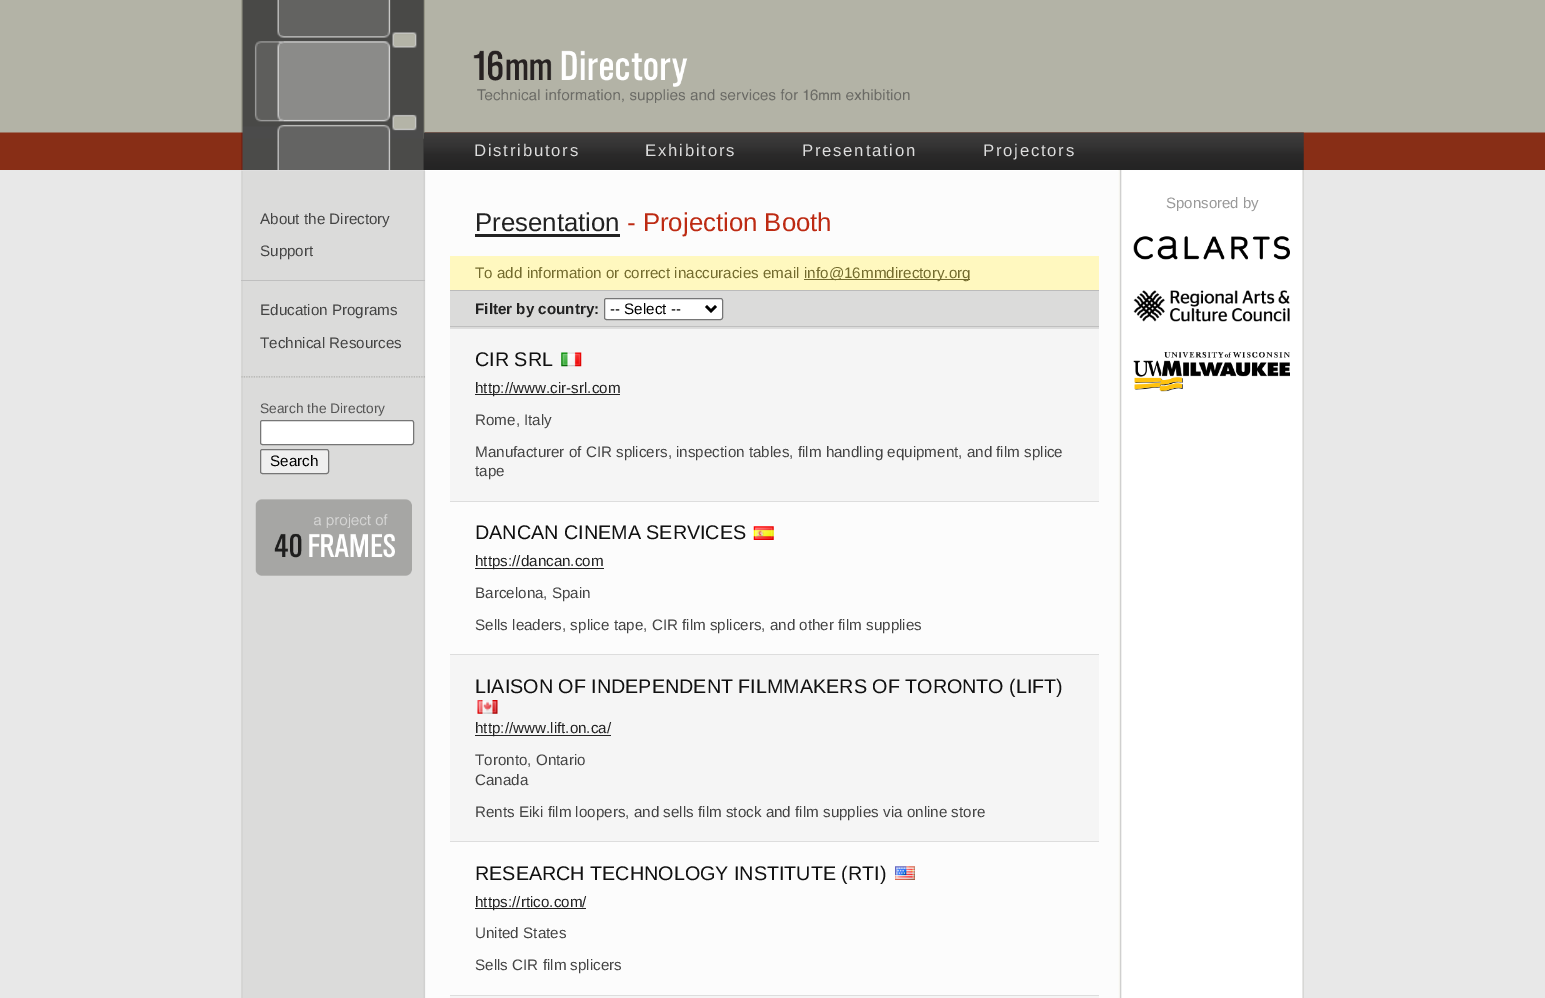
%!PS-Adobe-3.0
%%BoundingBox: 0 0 1545 998
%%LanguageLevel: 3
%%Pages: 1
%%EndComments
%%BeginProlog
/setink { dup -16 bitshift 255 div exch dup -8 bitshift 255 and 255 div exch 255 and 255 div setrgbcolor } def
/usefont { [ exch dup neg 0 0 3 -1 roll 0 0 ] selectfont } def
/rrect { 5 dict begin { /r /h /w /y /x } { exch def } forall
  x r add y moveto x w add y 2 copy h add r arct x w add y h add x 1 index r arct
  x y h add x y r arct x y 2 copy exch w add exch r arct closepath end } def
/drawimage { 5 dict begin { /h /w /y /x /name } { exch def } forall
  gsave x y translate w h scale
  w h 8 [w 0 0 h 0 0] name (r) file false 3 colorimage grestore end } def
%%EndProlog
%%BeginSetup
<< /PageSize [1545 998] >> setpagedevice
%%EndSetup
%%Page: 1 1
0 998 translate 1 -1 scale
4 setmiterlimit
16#E8E8E8 setink
0 0 1545 998 rectfill
(img1.raw) 0 0 1545 170 drawimage
(img2.raw) 241 0 184 170 drawimage
(img3.raw) 473 50 437 53 drawimage
(img4.raw) 423 132 881 38 drawimage
/LiberationSans-Regular 16.75 usefont
16#DDDDDD setink
474 156 moveto 1.75 0 (Distributors) ashow
645 156 moveto 1.75 0 (Exhibitors) ashow
802 156 moveto 1.75 0 (Presentation) ashow
983 156 moveto 1.75 0 (Projectors) ashow
(img5.raw) 241 170 1063 828 drawimage
/LiberationSans-Regular 15 usefont
16#999999 setink
1166 208 moveto (Sponsored by) show
(img6.raw) 1133 236 157 24 drawimage
(img7.raw) 1133 290 157 32 drawimage
(img8.raw) 1133 352 157 40 drawimage
16#DFDFDF setink
241 170 184 1 rectfill
(img9.raw) 241 376 184 2 drawimage
/LiberationSans-Regular 15.2 usefont
16#444444 setink
260 224 moveto (About the Directory) show
260 256 moveto (Support) show
16#BFBFBF setink
241 280 184 1 rectfill
16#444444 setink
260 315 moveto (Education Programs) show
260 348 moveto (Technical Resources) show
/LiberationSans-Regular 13.75 usefont
16#555555 setink
260 413 moveto (Search the Directory) show
16#FFFFFF setink
260.5 420.5 153 24 2 rrect gsave fill grestore
16#767676 setink
stroke
16#EFEFEF setink
260.5 449.5 68 24 2 rrect gsave fill grestore
16#767676 setink
stroke
/LiberationSans-Regular 15.2 usefont
16#000000 setink
270 466 moveto (Search) show
(img10.raw) 255 499 157 77 drawimage
16#FFFFFF setink
425 170 693 1 rectfill
/LiberationSans-Regular 25.75 usefont
16#222222 setink
475 231 moveto (Presentation) show
475 234 145 3 rectfill
16#BD2A12 setink
627 231 moveto (- Projection Booth) show
16#FFF8BF setink
450 256 649 34 rectfill
/LiberationSans-Regular 15.2 usefont
16#736B2E setink
475 278 moveto (To add information or correct inaccuracies email) show
804 279 166 1 rectfill
804 278 moveto (info@16mmdirectory.org) show
[
    [450 291 649 37 16#DBDBDA]
    [450 290 649 1 16#BBBBBB]
    [450 326 649 1 16#BFBFBF]
] { aload pop setink rectfill } forall
/LiberationSans-Bold 15.2 usefont
16#222222 setink
475 314 moveto (Filter by country:) show
16#FFFFFF setink
604.5 298.5 118 21 2 rrect gsave fill grestore
16#767676 setink
stroke
16#000000 setink
2.5 setlinewidth
706 306 moveto 711 311 lineto 716 306 lineto stroke
/LiberationSans-Regular 15.2 usefont
610 314 moveto (-- Select --) show
16#F5F5F5 setink
450 329 649 172 rectfill
16#DDDDDD setink
450 328 649 1 rectfill
/LiberationSans-Regular 19.75 usefont
16#111111 setink
475 366 moveto (CIR SRL) show
(img11.raw) 561 352 21 15 drawimage
16#222222 setink
475 394 145 1 rectfill
/LiberationSans-Regular 15.2 usefont
475 393 moveto (http://www.cir-srl.com) show
16#444444 setink
[
    [(Rome, Italy) 475 425]
    [(Manufacturer of CIR splicers, inspection tables, film handling equipment, and film splice) 475 457]
    [(tape) 475 476]
] { aload pop moveto show } forall
16#DDDDDD setink
450 501 649 1 rectfill
/LiberationSans-Regular 19.75 usefont
16#111111 setink
475 539 moveto (DANCAN CINEMA SERVICES) show
(img12.raw) 753 526 21 14 drawimage
16#222222 setink
475 568 129 1 rectfill
/LiberationSans-Regular 15.2 usefont
475 566 moveto (https://dancan.com) show
16#444444 setink
475 598 moveto (Barcelona, Spain) show
475 630 moveto (Sells leaders, splice tape, CIR film splicers, and other film supplies) show
16#F5F5F5 setink
450 655 649 186 rectfill
16#DDDDDD setink
450 654 649 1 rectfill
/LiberationSans-Regular 19.75 usefont
16#111111 setink
475 693 moveto (LIAISON OF INDEPENDENT FILMMAKERS OF TORONTO \(LIFT\)) show
(img13.raw) 477 700 21 14 drawimage
16#222222 setink
475 735 136 1 rectfill
/LiberationSans-Regular 15.2 usefont
475 733 moveto (http://www.lift.on.ca/) show
16#444444 setink
[
    [(Toronto, Ontario) 475 765]
    [(Canada) 475 785]
    [(Rents Eiki film loopers, and sells film stock and film supplies via online store) 475 817]
] { aload pop moveto show } forall
16#DDDDDD setink
450 841 649 1 rectfill
/LiberationSans-Regular 19.75 usefont
16#111111 setink
475 880 moveto (RESEARCH TECHNOLOGY INSTITUTE \(RTI\)) show
(img14.raw) 895 866 20 14 drawimage
16#222222 setink
475 908 111 1 rectfill
/LiberationSans-Regular 15.2 usefont
475 907 moveto (https://rtico.com/) show
16#444444 setink
475 938 moveto (United States) show
475 970 moveto (Sells CIR film splicers) show
16#F5F5F5 setink
450 996 649 2 rectfill
16#DDDDDD setink
450 995 649 1 rectfill
showpage
%%EOF
